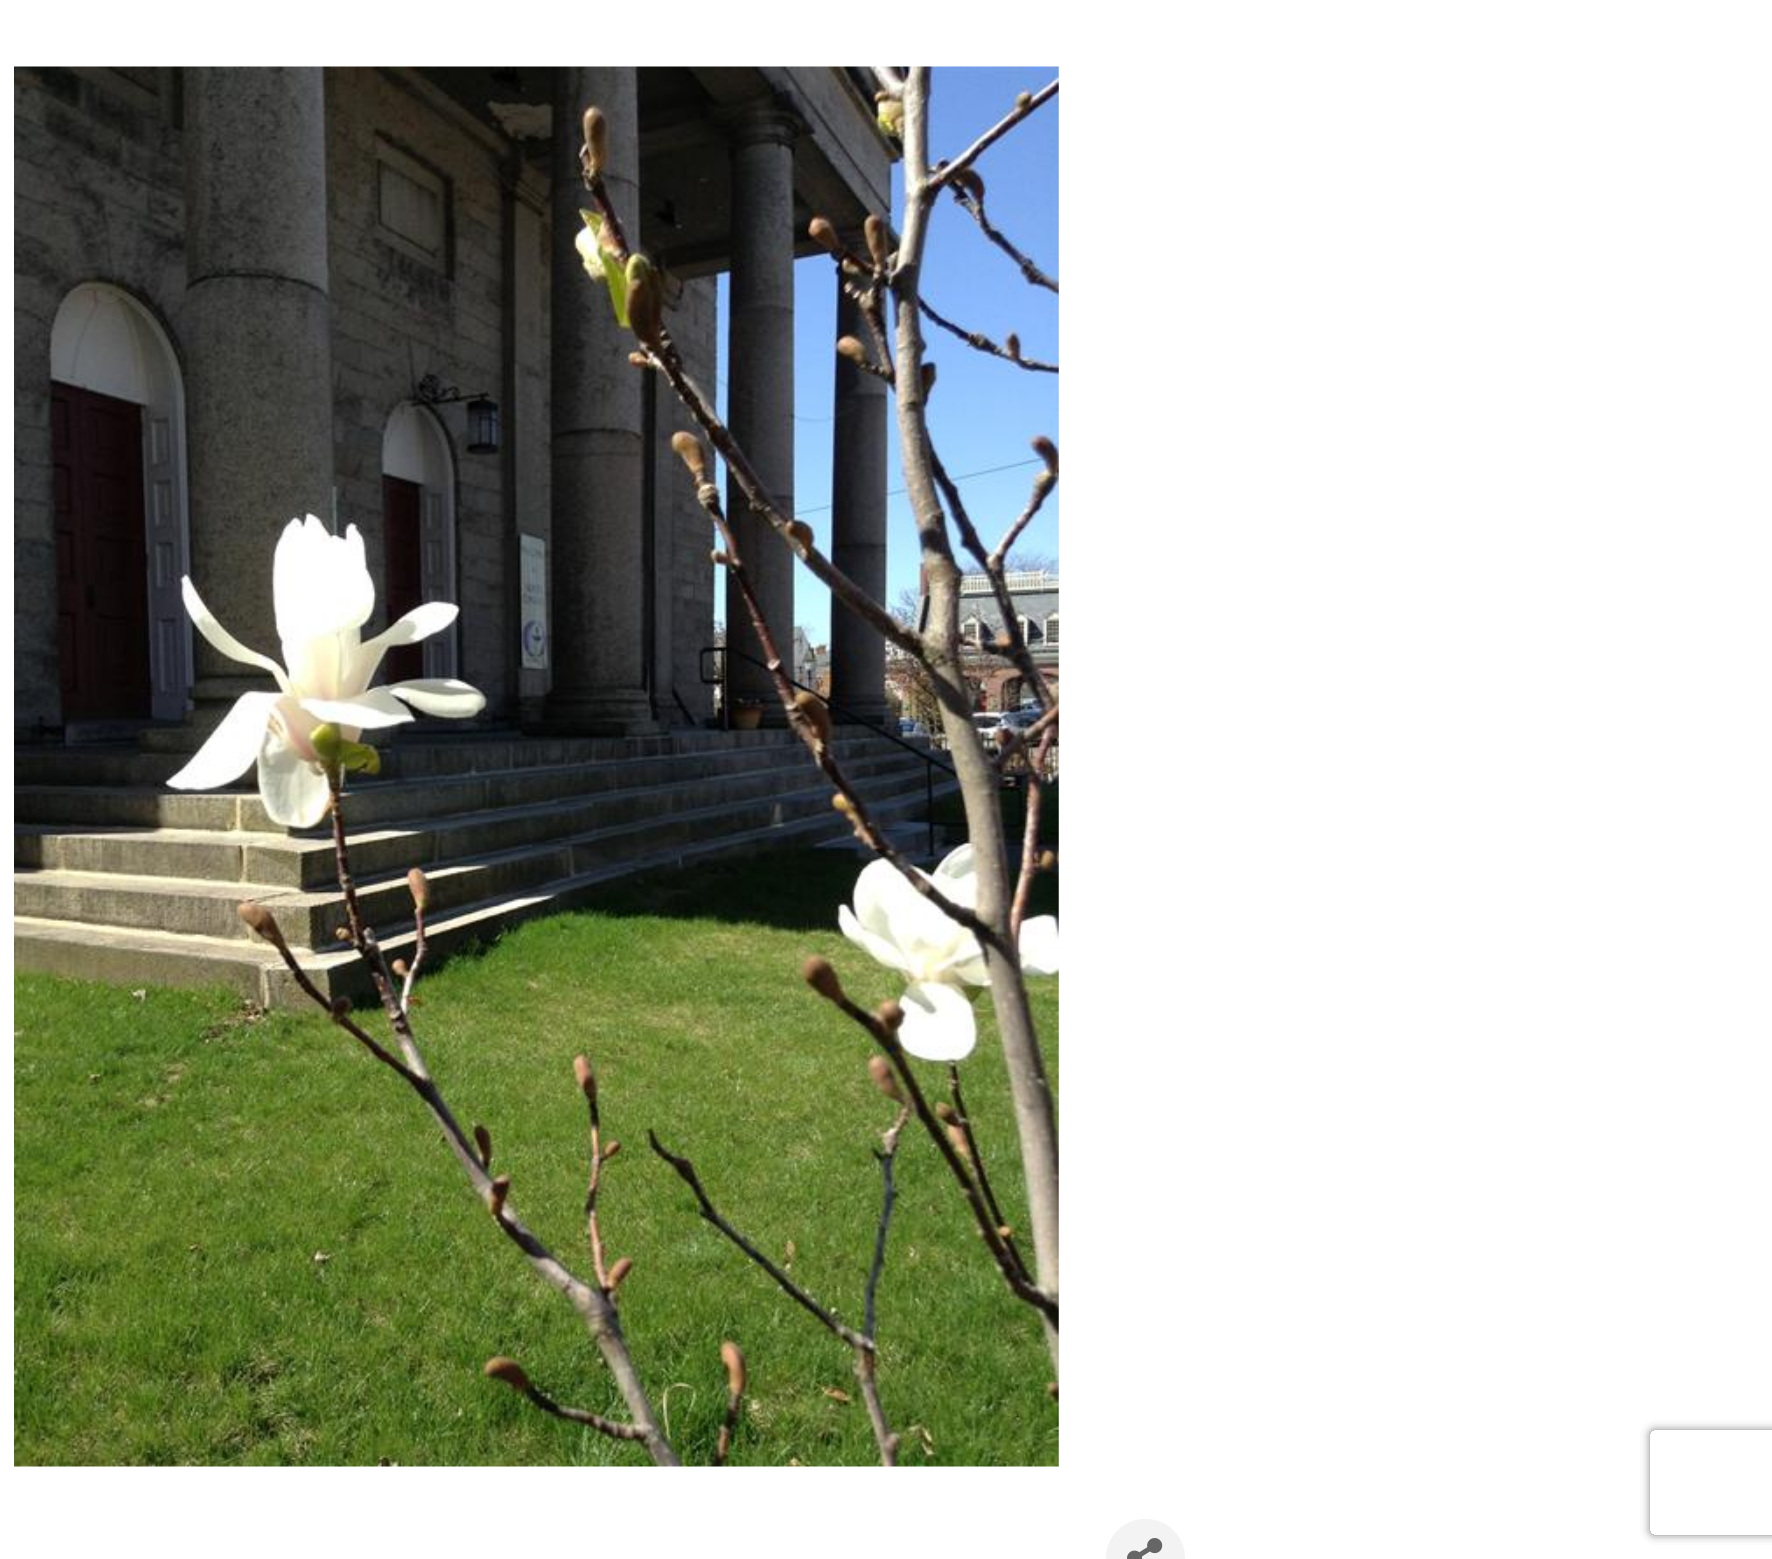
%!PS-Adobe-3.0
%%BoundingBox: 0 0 1772 1559
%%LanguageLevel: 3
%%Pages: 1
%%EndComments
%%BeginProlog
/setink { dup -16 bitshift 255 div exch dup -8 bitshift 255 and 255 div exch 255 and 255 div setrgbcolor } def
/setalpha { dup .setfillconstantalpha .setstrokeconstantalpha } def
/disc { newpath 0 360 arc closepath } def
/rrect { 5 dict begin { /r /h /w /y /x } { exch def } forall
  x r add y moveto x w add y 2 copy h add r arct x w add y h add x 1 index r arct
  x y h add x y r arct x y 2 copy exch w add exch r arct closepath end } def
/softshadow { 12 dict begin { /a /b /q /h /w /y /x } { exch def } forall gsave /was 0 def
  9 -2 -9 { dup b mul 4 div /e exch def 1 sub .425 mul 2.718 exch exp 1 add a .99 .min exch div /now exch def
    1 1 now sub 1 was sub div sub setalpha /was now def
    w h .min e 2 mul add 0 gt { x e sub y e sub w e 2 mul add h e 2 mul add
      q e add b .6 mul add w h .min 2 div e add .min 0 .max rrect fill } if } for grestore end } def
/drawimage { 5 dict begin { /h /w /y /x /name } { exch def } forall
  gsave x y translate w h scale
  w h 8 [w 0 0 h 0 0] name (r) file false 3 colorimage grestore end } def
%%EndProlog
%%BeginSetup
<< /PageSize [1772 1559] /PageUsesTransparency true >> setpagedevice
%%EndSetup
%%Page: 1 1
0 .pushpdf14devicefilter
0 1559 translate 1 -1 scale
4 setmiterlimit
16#FFFFFF setink
0 0 1772 1559 rectfill
(img1.raw) 14 66 1045 1401 drawimage
16#F3F3F3 setink
1145.5 1558.5 39.5 disc fill
(img2.raw) 1127 1538 36 21 drawimage
gsave
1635 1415 moveto 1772 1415 lineto 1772 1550 lineto 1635 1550 lineto closepath 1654 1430 moveto 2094 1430 lineto 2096 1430 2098 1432 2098 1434 curveto 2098 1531 lineto 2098 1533 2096 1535 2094 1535 curveto 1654 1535 lineto 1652 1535 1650 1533 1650 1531 curveto 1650 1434 lineto 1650 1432 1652 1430 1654 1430 curveto closepath eoclip newpath
16#808080 setink
1650 1430 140 105 4 4.5 1 softshadow
grestore
.poppdf14devicefilter showpage
%%EOF
